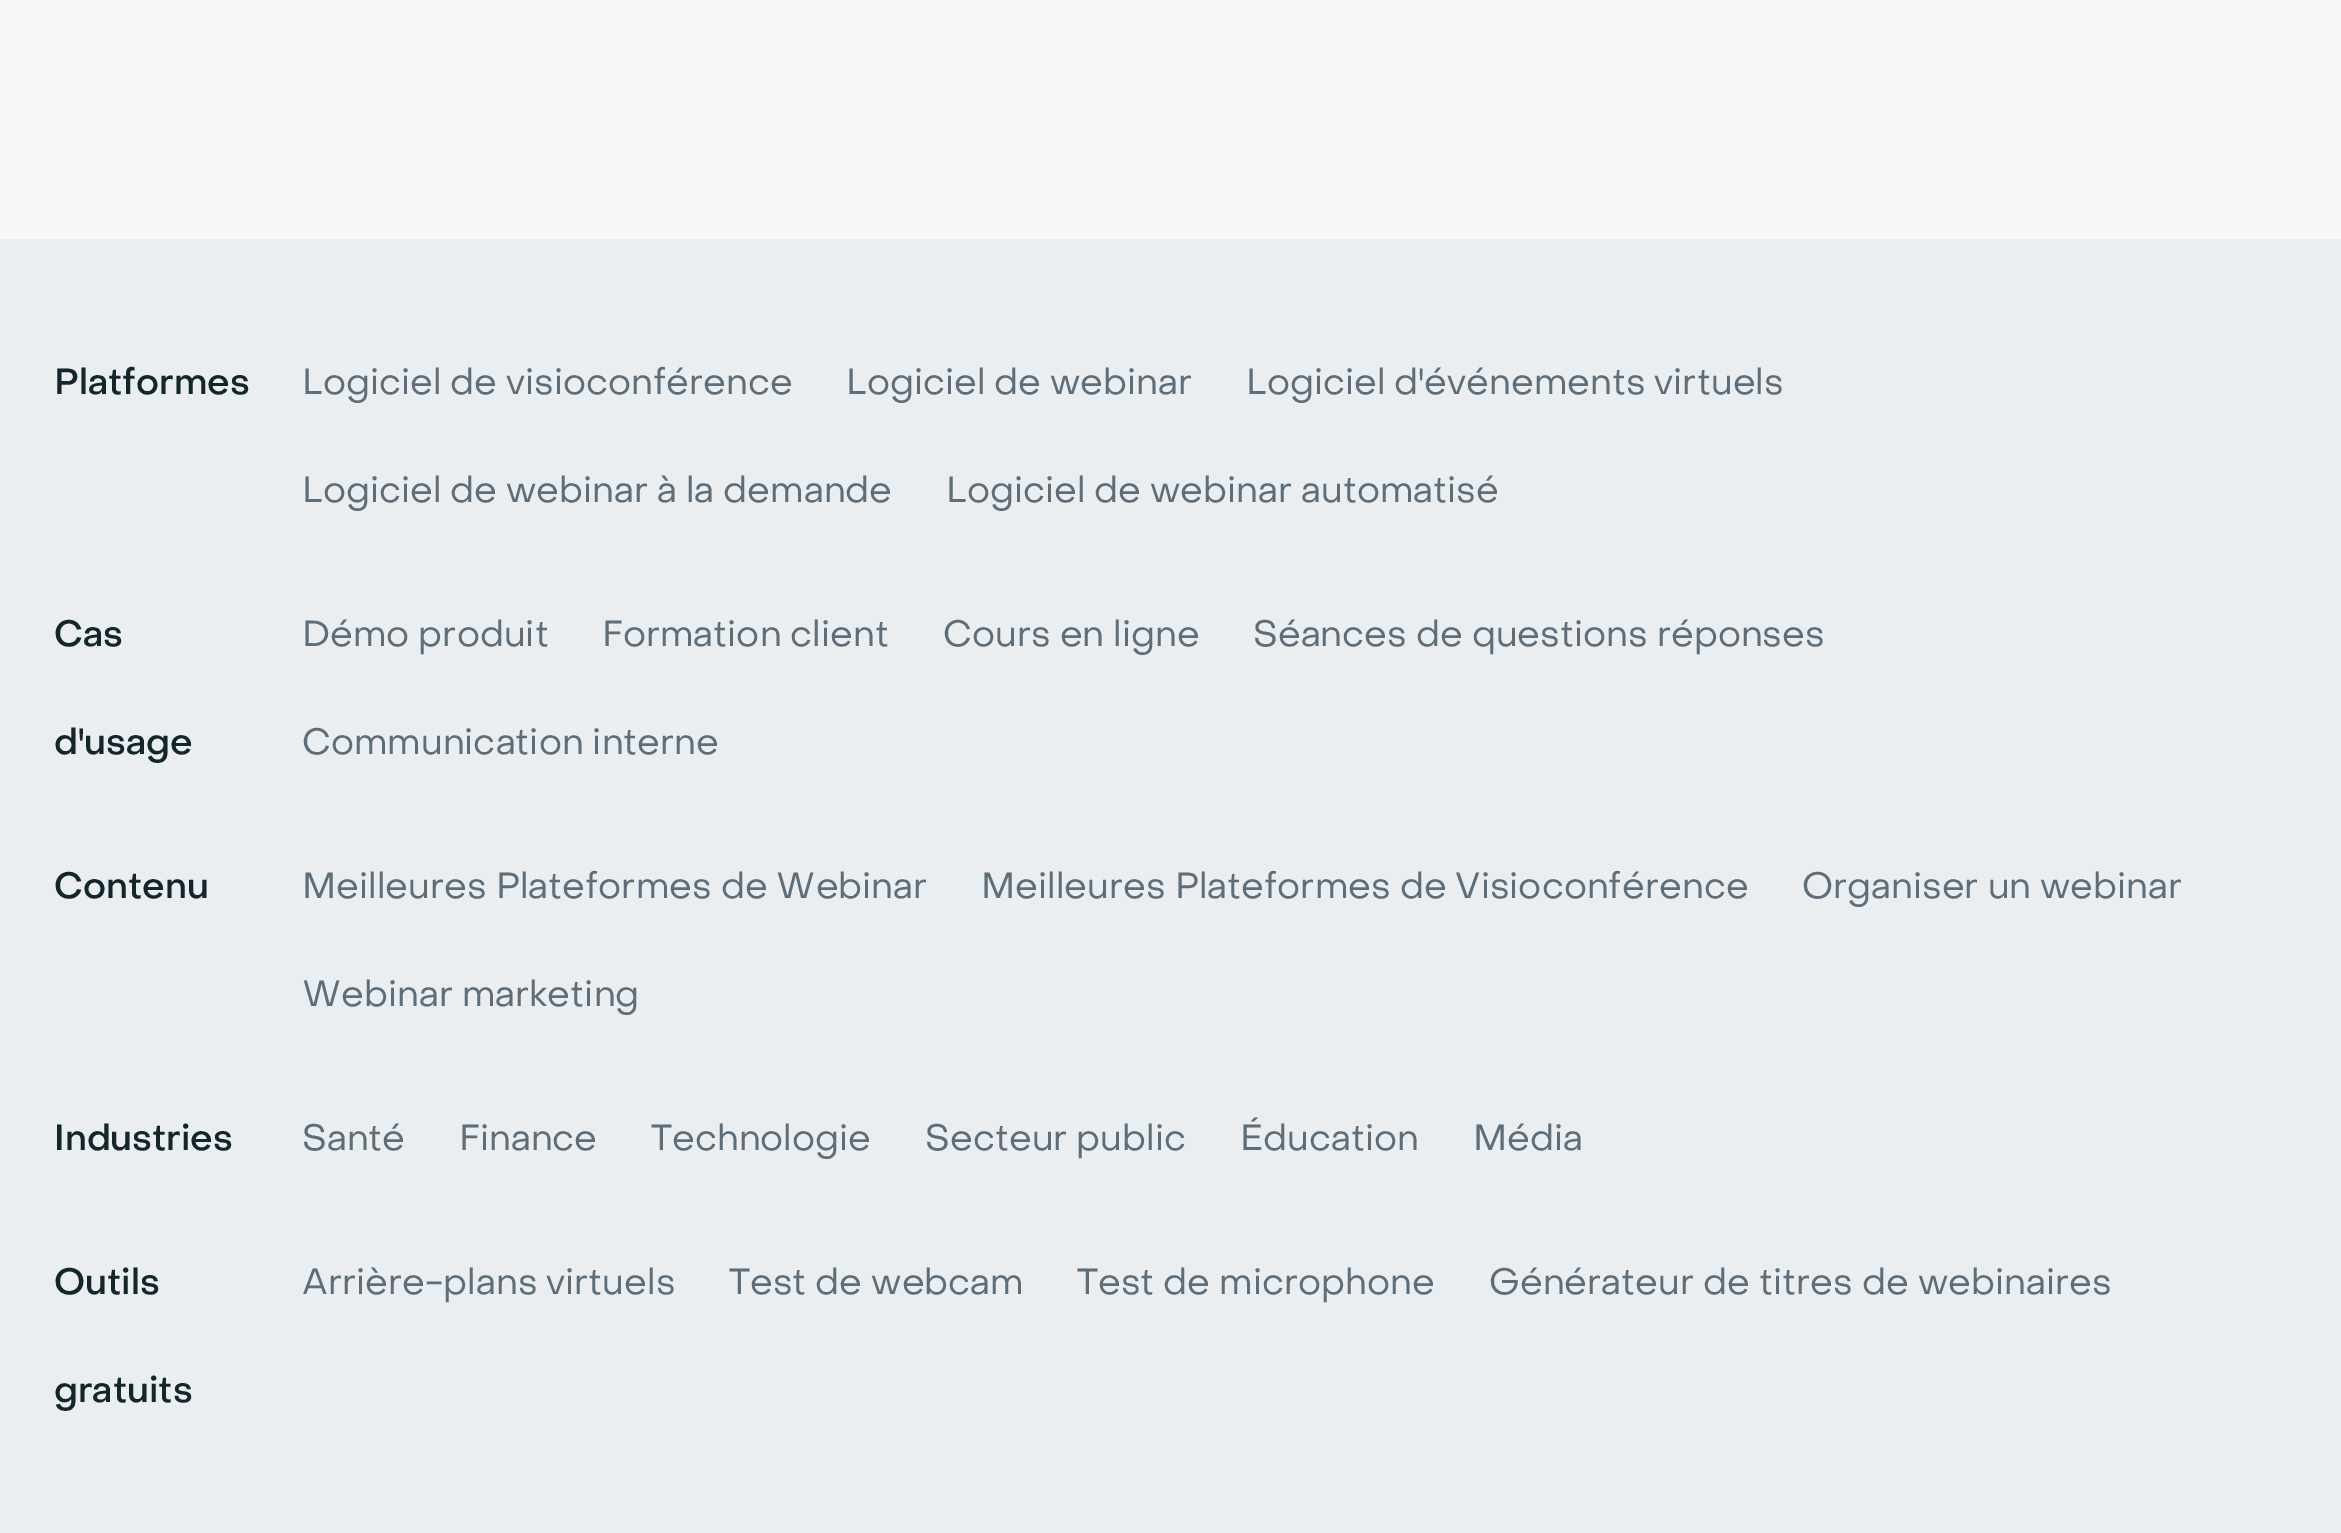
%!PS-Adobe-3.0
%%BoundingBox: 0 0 2341 1533
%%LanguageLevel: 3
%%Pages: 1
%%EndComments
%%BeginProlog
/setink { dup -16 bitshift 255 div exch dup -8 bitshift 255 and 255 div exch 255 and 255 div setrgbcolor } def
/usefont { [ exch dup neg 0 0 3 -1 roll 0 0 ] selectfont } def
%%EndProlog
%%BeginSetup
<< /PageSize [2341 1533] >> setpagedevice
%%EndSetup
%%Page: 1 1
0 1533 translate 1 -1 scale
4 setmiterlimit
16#F6F8F9 setink
0 0 2341 1533 rectfill
16#EAEEF1 setink
0 239 2341 1294 rectfill
/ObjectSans-Medium 36 usefont
16#12262B setink
54 394 moveto (Platformes) show
/ObjectSans-Regular 36 usefont
16#5D6D79 setink
[
    [(Logiciel de visioconférence) 302 394]
    [(Logiciel de webinar) 846 394]
    [(Logiciel d'événements virtuels) 1246 394]
    [(Logiciel de webinar à la demande) 302 502]
    [(Logiciel de webinar automatisé) 946 502]
] { aload pop moveto show } forall
/ObjectSans-Medium 36 usefont
16#12262B setink
54 646 moveto (Cas) show
54 754 moveto (d'usage) show
/ObjectSans-Regular 36 usefont
16#5D6D79 setink
[
    [(Démo produit) 302 646]
    [(Formation client) 602 646]
    [(Cours en ligne) 943 646]
    [(Séances de questions réponses) 1253 646]
    [(Communication interne) 302 754]
] { aload pop moveto show } forall
/ObjectSans-Medium 36 usefont
16#12262B setink
54 898 moveto (Contenu) show
/ObjectSans-Regular 36 usefont
16#5D6D79 setink
[
    [(Meilleures Plateformes de Webinar) 302 898]
    [(Meilleures Plateformes de Visioconférence) 981 898]
    [(Organiser un webinar) 1802 898]
    [(Webinar marketing) 302 1006]
] { aload pop moveto show } forall
/ObjectSans-Medium 36 usefont
16#12262B setink
54 1150 moveto (Industries) show
/ObjectSans-Regular 36 usefont
16#5D6D79 setink
[
    [(Santé) 302 1150]
    [(Finance) 459 1150]
    [(Technologie) 651 1150]
    [(Secteur public) 925 1150]
    [(Éducation) 1240 1150]
    [(Média) 1473 1150]
] { aload pop moveto show } forall
/ObjectSans-Medium 36 usefont
16#12262B setink
54 1294 moveto (Outils) show
54 1402 moveto (gratuits) show
/ObjectSans-Regular 36 usefont
16#5D6D79 setink
[
    [(Arrière-plans virtuels) 302 1294]
    [(Test de webcam) 729 1294]
    [(Test de microphone) 1077 1294]
    [(Générateur de titres de webinaires) 1489 1294]
] { aload pop moveto show } forall
showpage
%%EOF
